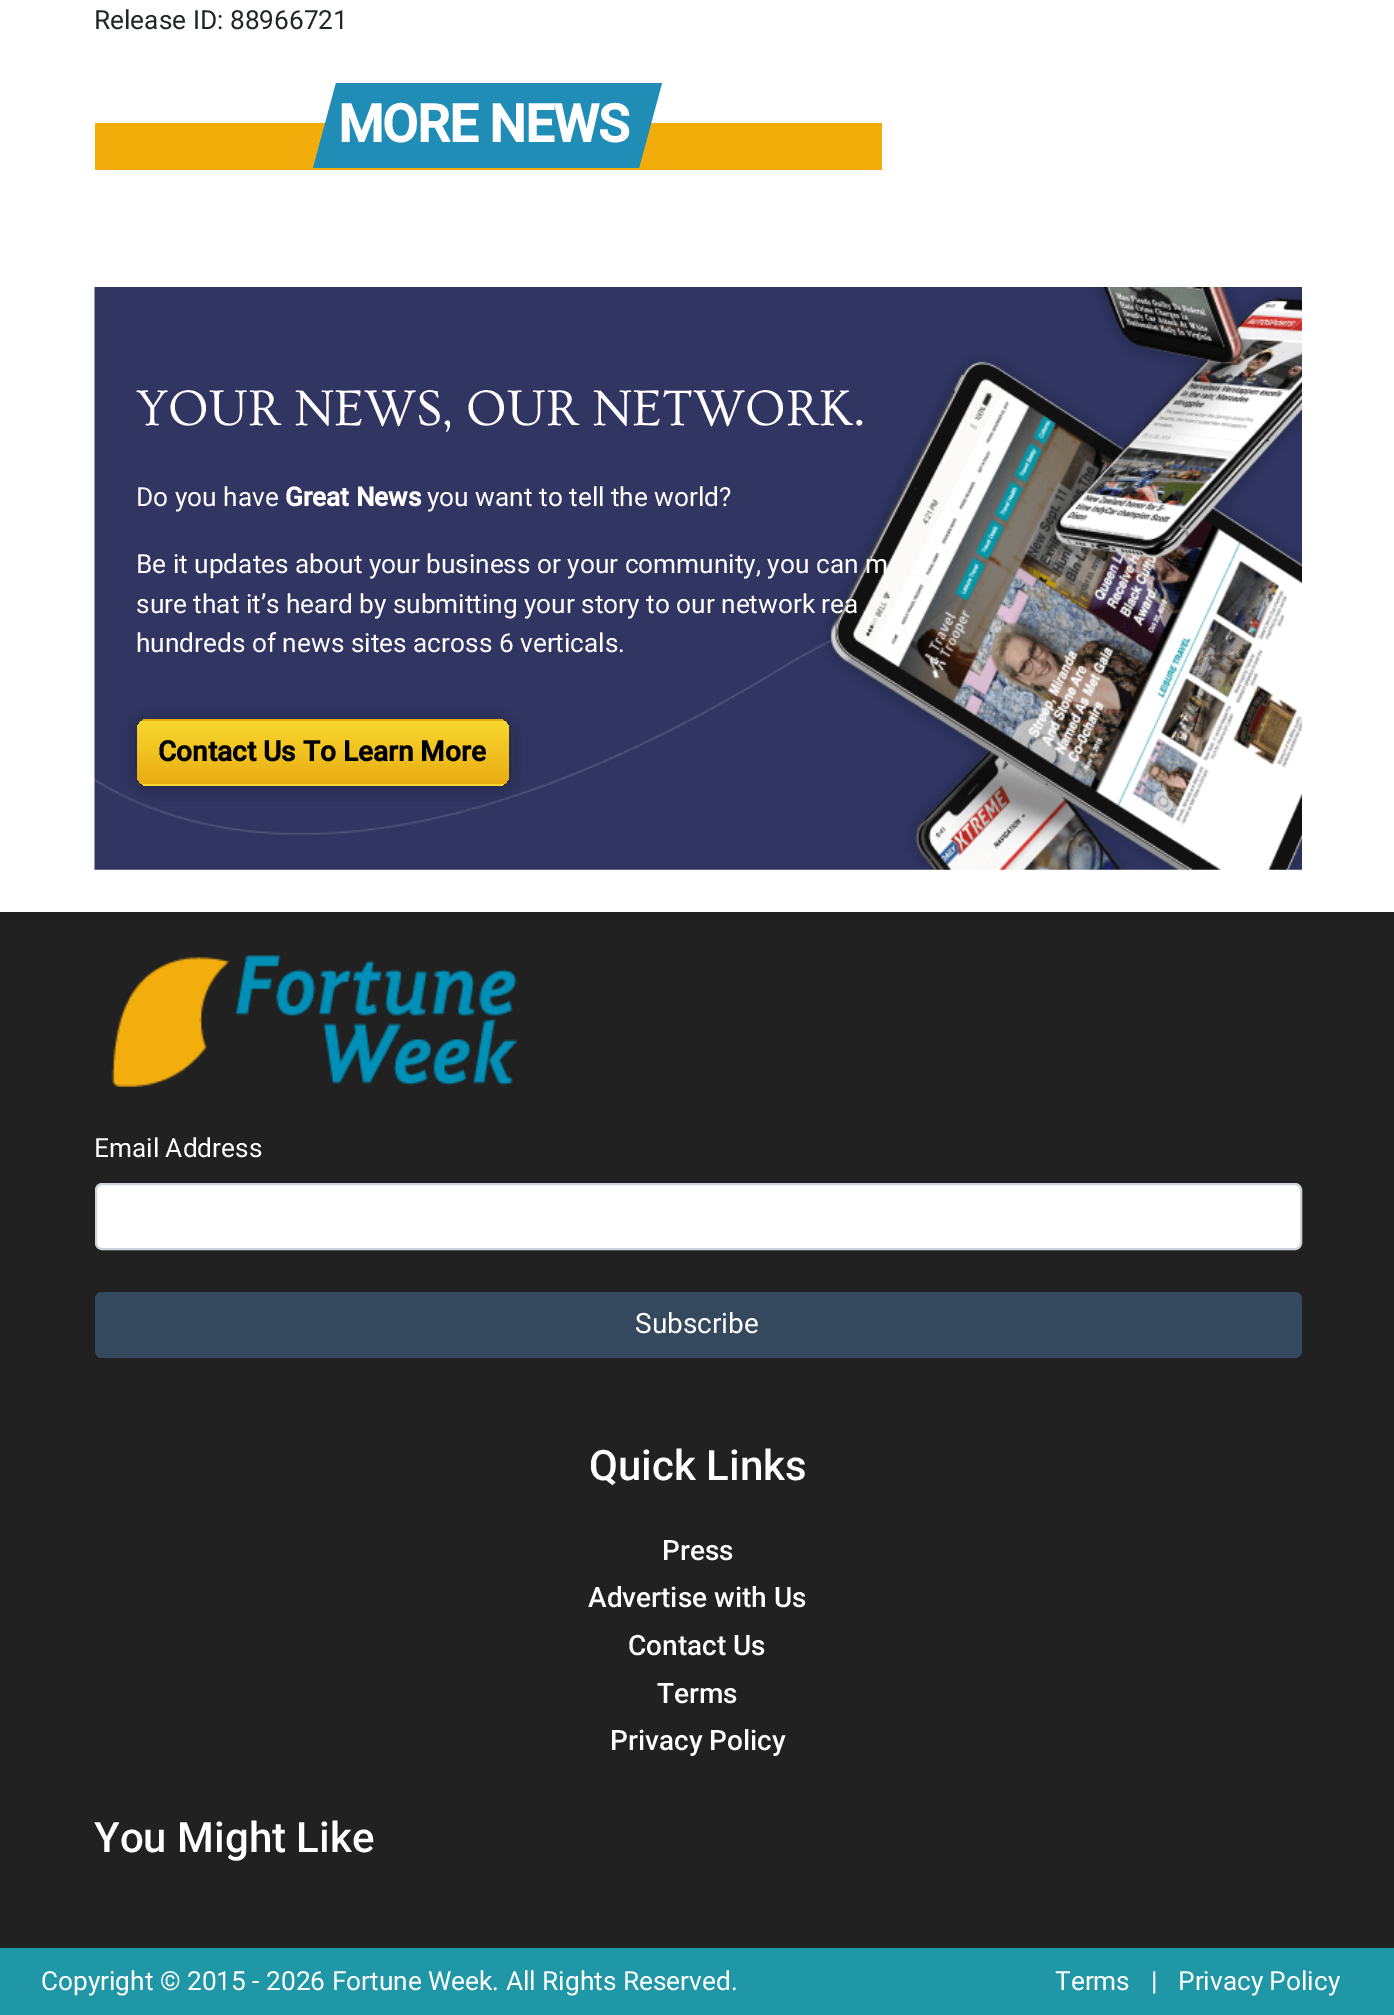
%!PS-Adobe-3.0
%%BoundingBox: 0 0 1394 2015
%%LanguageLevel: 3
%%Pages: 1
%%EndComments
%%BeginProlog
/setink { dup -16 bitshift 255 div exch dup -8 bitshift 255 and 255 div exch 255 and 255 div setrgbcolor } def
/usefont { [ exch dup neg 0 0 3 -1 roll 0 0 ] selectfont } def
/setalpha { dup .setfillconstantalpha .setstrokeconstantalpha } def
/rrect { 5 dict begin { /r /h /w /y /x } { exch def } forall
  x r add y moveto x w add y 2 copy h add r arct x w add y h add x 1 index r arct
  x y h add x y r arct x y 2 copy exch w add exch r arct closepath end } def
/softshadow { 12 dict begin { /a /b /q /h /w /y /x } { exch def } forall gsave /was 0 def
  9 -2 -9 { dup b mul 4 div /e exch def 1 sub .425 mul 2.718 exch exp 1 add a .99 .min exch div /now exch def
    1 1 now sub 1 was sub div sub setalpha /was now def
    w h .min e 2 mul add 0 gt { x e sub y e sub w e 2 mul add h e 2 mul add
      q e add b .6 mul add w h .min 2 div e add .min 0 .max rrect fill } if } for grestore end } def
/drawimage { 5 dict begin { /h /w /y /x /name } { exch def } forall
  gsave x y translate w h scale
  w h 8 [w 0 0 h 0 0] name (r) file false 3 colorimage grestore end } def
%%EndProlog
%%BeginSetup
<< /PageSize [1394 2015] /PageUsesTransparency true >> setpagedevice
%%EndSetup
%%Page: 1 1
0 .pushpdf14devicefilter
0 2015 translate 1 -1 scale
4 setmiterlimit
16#FFFFFF setink
0 0 1394 2015 rectfill
/Roboto-Regular 26.25 usefont
16#212529 setink
94 29 moveto (Release ID: 88966721) show
16#F3AD0B setink
95 123 787 47 rectfill
16#208DB7 setink
336 83 moveto 662 83 lineto 639 168 lineto 313 168 lineto closepath fill
/Roboto-Bold 52.25 usefont
16#FFFFFF setink
338 142 moveto -1.25 0 (MORE NEWS) ashow
(img1.raw) 94 287 1208 583 drawimage
/Ovo-Regular 52.5 usefont
136 425 moveto (YOUR NEWS, OUR NETWORK.) show
/Roboto-Regular 26.25 usefont
136 506 moveto (Do you have) show
/Roboto-Bold 26.25 usefont
285 506 moveto (Great News) show
/Roboto-Regular 26.25 usefont
[
    [(you want to tell the world?) 427 506]
    [(Be it updates about your business or your community, you can m) 136 573]
    [(sure that it’s heard by submitting your story to our network rea) 136 613]
    [(hundreds of news sites across 6 verticals.) 136 652]
] { aload pop moveto show } forall
16#000000 setink
137 721 372 67 11 10.5 0.25 softshadow
gsave
137 719 372 67 11 rrect clip newpath
gsave 138 719 moveto 508 719 lineto 508 721 lineto 138 721 lineto closepath clip newpath
<< /ShadingType 2 /ColorSpace /DeviceRGB /Coords [323 656 323 723] /Extend [true true] /Function << /FunctionType 3 /Domain [0 1] /Functions [<< /FunctionType 2 /Domain [0 1] /C0 [0.976 0.847 0.184] /C1 [0.976 0.847 0.184] /N 1 >> << /FunctionType 2 /Domain [0 1] /C0 [0.976 0.847 0.184] /C1 [0.914 0.678 0.075] /N 1 >> << /FunctionType 2 /Domain [0 1] /C0 [0.914 0.678 0.075] /C1 [0.914 0.678 0.075] /N 1 >>] /Bounds [0.02 0.96] /Encode [0 1 0 1 0 1] >> >> shfill grestore
gsave 137 721 moveto 138 721 lineto 138 784 lineto 137 784 lineto closepath clip newpath
<< /ShadingType 2 /ColorSpace /DeviceRGB /Coords [-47 719 -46 786] /Extend [true true] /Function << /FunctionType 3 /Domain [0 1] /Functions [<< /FunctionType 2 /Domain [0 1] /C0 [0.976 0.847 0.184] /C1 [0.976 0.847 0.184] /N 1 >> << /FunctionType 2 /Domain [0 1] /C0 [0.976 0.847 0.184] /C1 [0.914 0.678 0.075] /N 1 >> << /FunctionType 2 /Domain [0 1] /C0 [0.914 0.678 0.075] /C1 [0.914 0.678 0.075] /N 1 >>] /Bounds [0.02 0.96] /Encode [0 1 0 1 0 1] >> >> shfill grestore
gsave 138 721 moveto 508 721 lineto 508 784 lineto 138 784 lineto closepath clip newpath
<< /ShadingType 2 /ColorSpace /DeviceRGB /Coords [323 719 323 786] /Extend [true true] /Function << /FunctionType 3 /Domain [0 1] /Functions [<< /FunctionType 2 /Domain [0 1] /C0 [0.976 0.847 0.184] /C1 [0.976 0.847 0.184] /N 1 >> << /FunctionType 2 /Domain [0 1] /C0 [0.976 0.847 0.184] /C1 [0.914 0.678 0.075] /N 1 >> << /FunctionType 2 /Domain [0 1] /C0 [0.914 0.678 0.075] /C1 [0.914 0.678 0.075] /N 1 >>] /Bounds [0.02 0.96] /Encode [0 1 0 1 0 1] >> >> shfill grestore
gsave 508 721 moveto 509 721 lineto 509 784 lineto 508 784 lineto closepath clip newpath
<< /ShadingType 2 /ColorSpace /DeviceRGB /Coords [692 719 692 786] /Extend [true true] /Function << /FunctionType 3 /Domain [0 1] /Functions [<< /FunctionType 2 /Domain [0 1] /C0 [0.976 0.847 0.184] /C1 [0.976 0.847 0.184] /N 1 >> << /FunctionType 2 /Domain [0 1] /C0 [0.976 0.847 0.184] /C1 [0.914 0.678 0.075] /N 1 >> << /FunctionType 2 /Domain [0 1] /C0 [0.914 0.678 0.075] /C1 [0.914 0.678 0.075] /N 1 >>] /Bounds [0.02 0.96] /Encode [0 1 0 1 0 1] >> >> shfill grestore
gsave 138 784 moveto 508 784 lineto 508 786 lineto 138 786 lineto closepath clip newpath
<< /ShadingType 2 /ColorSpace /DeviceRGB /Coords [323 782 323 849] /Extend [true true] /Function << /FunctionType 3 /Domain [0 1] /Functions [<< /FunctionType 2 /Domain [0 1] /C0 [0.976 0.847 0.184] /C1 [0.976 0.847 0.184] /N 1 >> << /FunctionType 2 /Domain [0 1] /C0 [0.976 0.847 0.184] /C1 [0.914 0.678 0.075] /N 1 >> << /FunctionType 2 /Domain [0 1] /C0 [0.914 0.678 0.075] /C1 [0.914 0.678 0.075] /N 1 >>] /Bounds [0.02 0.96] /Encode [0 1 0 1 0 1] >> >> shfill grestore
grestore
/Roboto-Bold 28 usefont
158 761 moveto (Contact Us To Learn More) show
16#212121 setink
0 912 1394 1036 rectfill
(img2.raw) 111 955 408 132 drawimage
/Roboto-Regular 26.25 usefont
16#FFFFFF setink
94 1157 moveto (Email Address) show
96 1184 1205 65 6 rrect gsave fill grestore
16#CED4DA setink
2 setlinewidth
stroke
16#34495E setink
95 1292 1207 66 7 rrect fill
/Roboto-Regular 28 usefont
16#FFFFFF setink
635 1333 moveto (Subscribe) show
/Roboto-Medium 42 usefont
589 1480 moveto (Quick Links) show
/Roboto-Medium 28 usefont
[
    [(Press) 662 1560]
    [(Advertise with Us) 588 1607]
    [(Contact Us) 628 1655]
    [(Terms) 657 1703]
    [(Privacy Policy) 610 1750]
] { aload pop moveto show } forall
/Roboto-Medium 42 usefont
94 1852 moveto (You Might Like) show
16#1F97A7 setink
0 1948 1394 67 rectfill
/Roboto-Regular 26.25 usefont
16#FFFFFF setink
[
    [(Copyright © 2015 - 2026 Fortune Week. All Rights Reserved.) 41 1990]
    [(Terms) 1055 1990]
    [(|) 1151 1990]
    [(Privacy Policy) 1178 1990]
] { aload pop moveto show } forall
.poppdf14devicefilter showpage
%%EOF
